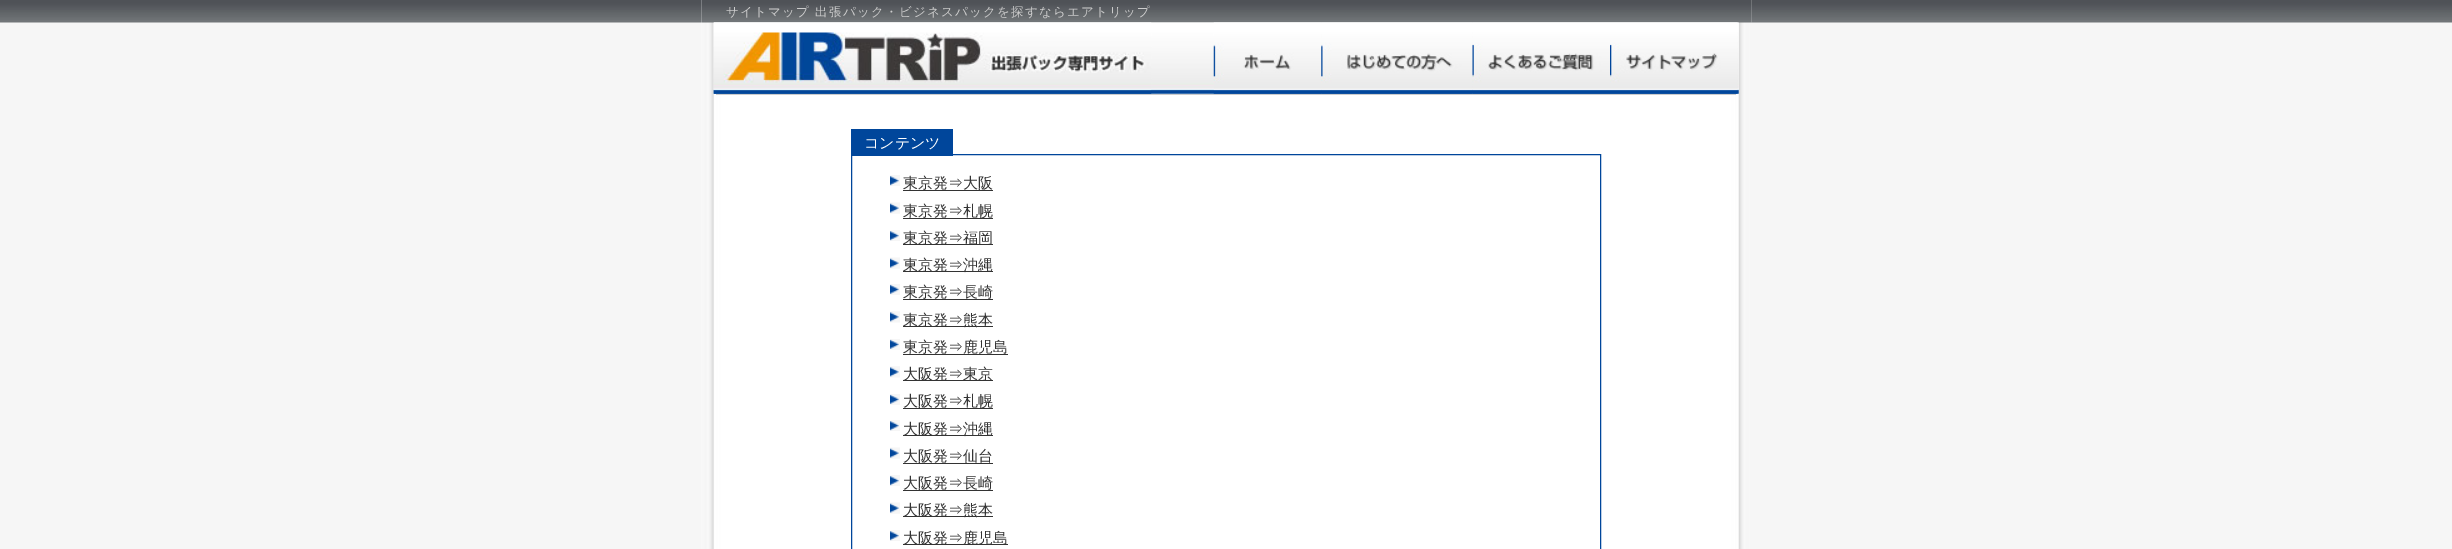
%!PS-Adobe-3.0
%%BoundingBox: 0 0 2452 549
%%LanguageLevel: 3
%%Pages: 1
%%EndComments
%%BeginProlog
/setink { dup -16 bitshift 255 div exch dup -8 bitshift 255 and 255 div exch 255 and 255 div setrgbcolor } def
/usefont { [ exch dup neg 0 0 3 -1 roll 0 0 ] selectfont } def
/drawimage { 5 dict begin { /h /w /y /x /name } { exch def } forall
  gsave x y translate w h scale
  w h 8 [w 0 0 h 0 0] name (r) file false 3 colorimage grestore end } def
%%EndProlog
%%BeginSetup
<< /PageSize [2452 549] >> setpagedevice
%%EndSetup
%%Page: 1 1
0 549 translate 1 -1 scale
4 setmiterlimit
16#F6F6F6 setink
0 0 2452 549 rectfill
(img1.raw) 0 0 2452 23 drawimage
(img2.raw) 701 0 1051 549 drawimage
(img3.raw) 701 0 1051 23 drawimage
/WenQuanYiZenHei-Medium 12.5 usefont
16#CCCCCC setink
726 16 moveto 1.25 0 (サイトマップ 出張パック・ビジネスパックを探すならエアトリップ) ashow
(img4.raw) 713 22 1026 72 drawimage
(img5.raw) 713 22 439 72 drawimage
(img6.raw) 1213 22 109 72 drawimage
(img7.raw) 1321 22 152 72 drawimage
(img8.raw) 1472 22 138 72 drawimage
(img9.raw) 1610 22 128 72 drawimage
716 94 1020 1 rectfill
16#00469B setink
851.5 154.5 749 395 rectstroke
851 129 102 27 rectfill
/WenQuanYiZenHei-Medium 15 usefont
16#FFFFFF setink
864 148 moveto (コンテンツ) show
(img10.raw) 890 175 10 11 drawimage
16#333333 setink
903 188 moveto (東京発⇒大阪) show
903 190 90 1 rectfill
(img11.raw) 890 202 10 12 drawimage
903 218 90 1 rectfill
903 216 moveto (東京発⇒札幌) show
(img10.raw) 890 230 10 11 drawimage
903 244 90 1 rectfill
903 243 moveto (東京発⇒福岡) show
(img11.raw) 890 257 10 12 drawimage
903 271 90 1 rectfill
903 270 moveto (東京発⇒沖縄) show
(img12.raw) 890 284 10 11 drawimage
903 297 moveto (東京発⇒長崎) show
903 299 90 1 rectfill
(img13.raw) 890 311 10 12 drawimage
903 326 90 1 rectfill
903 325 moveto (東京発⇒熊本) show
(img12.raw) 890 339 10 11 drawimage
903 352 moveto (東京発⇒鹿児島) show
903 354 105 1 rectfill
(img13.raw) 890 366 10 12 drawimage
903 380 90 1 rectfill
903 379 moveto (大阪発⇒東京) show
(img12.raw) 890 394 10 11 drawimage
903 408 90 1 rectfill
903 406 moveto (大阪発⇒札幌) show
(img10.raw) 890 420 10 11 drawimage
903 435 90 1 rectfill
903 434 moveto (大阪発⇒沖縄) show
(img11.raw) 890 447 10 12 drawimage
903 461 moveto (大阪発⇒仙台) show
903 463 90 1 rectfill
(img10.raw) 890 475 10 11 drawimage
903 488 moveto (大阪発⇒長崎) show
903 490 90 1 rectfill
(img11.raw) 890 502 10 12 drawimage
903 516 90 1 rectfill
903 515 moveto (大阪発⇒熊本) show
(img10.raw) 890 530 10 11 drawimage
903 544 105 1 rectfill
903 543 moveto (大阪発⇒鹿児島) show
showpage
%%EOF
